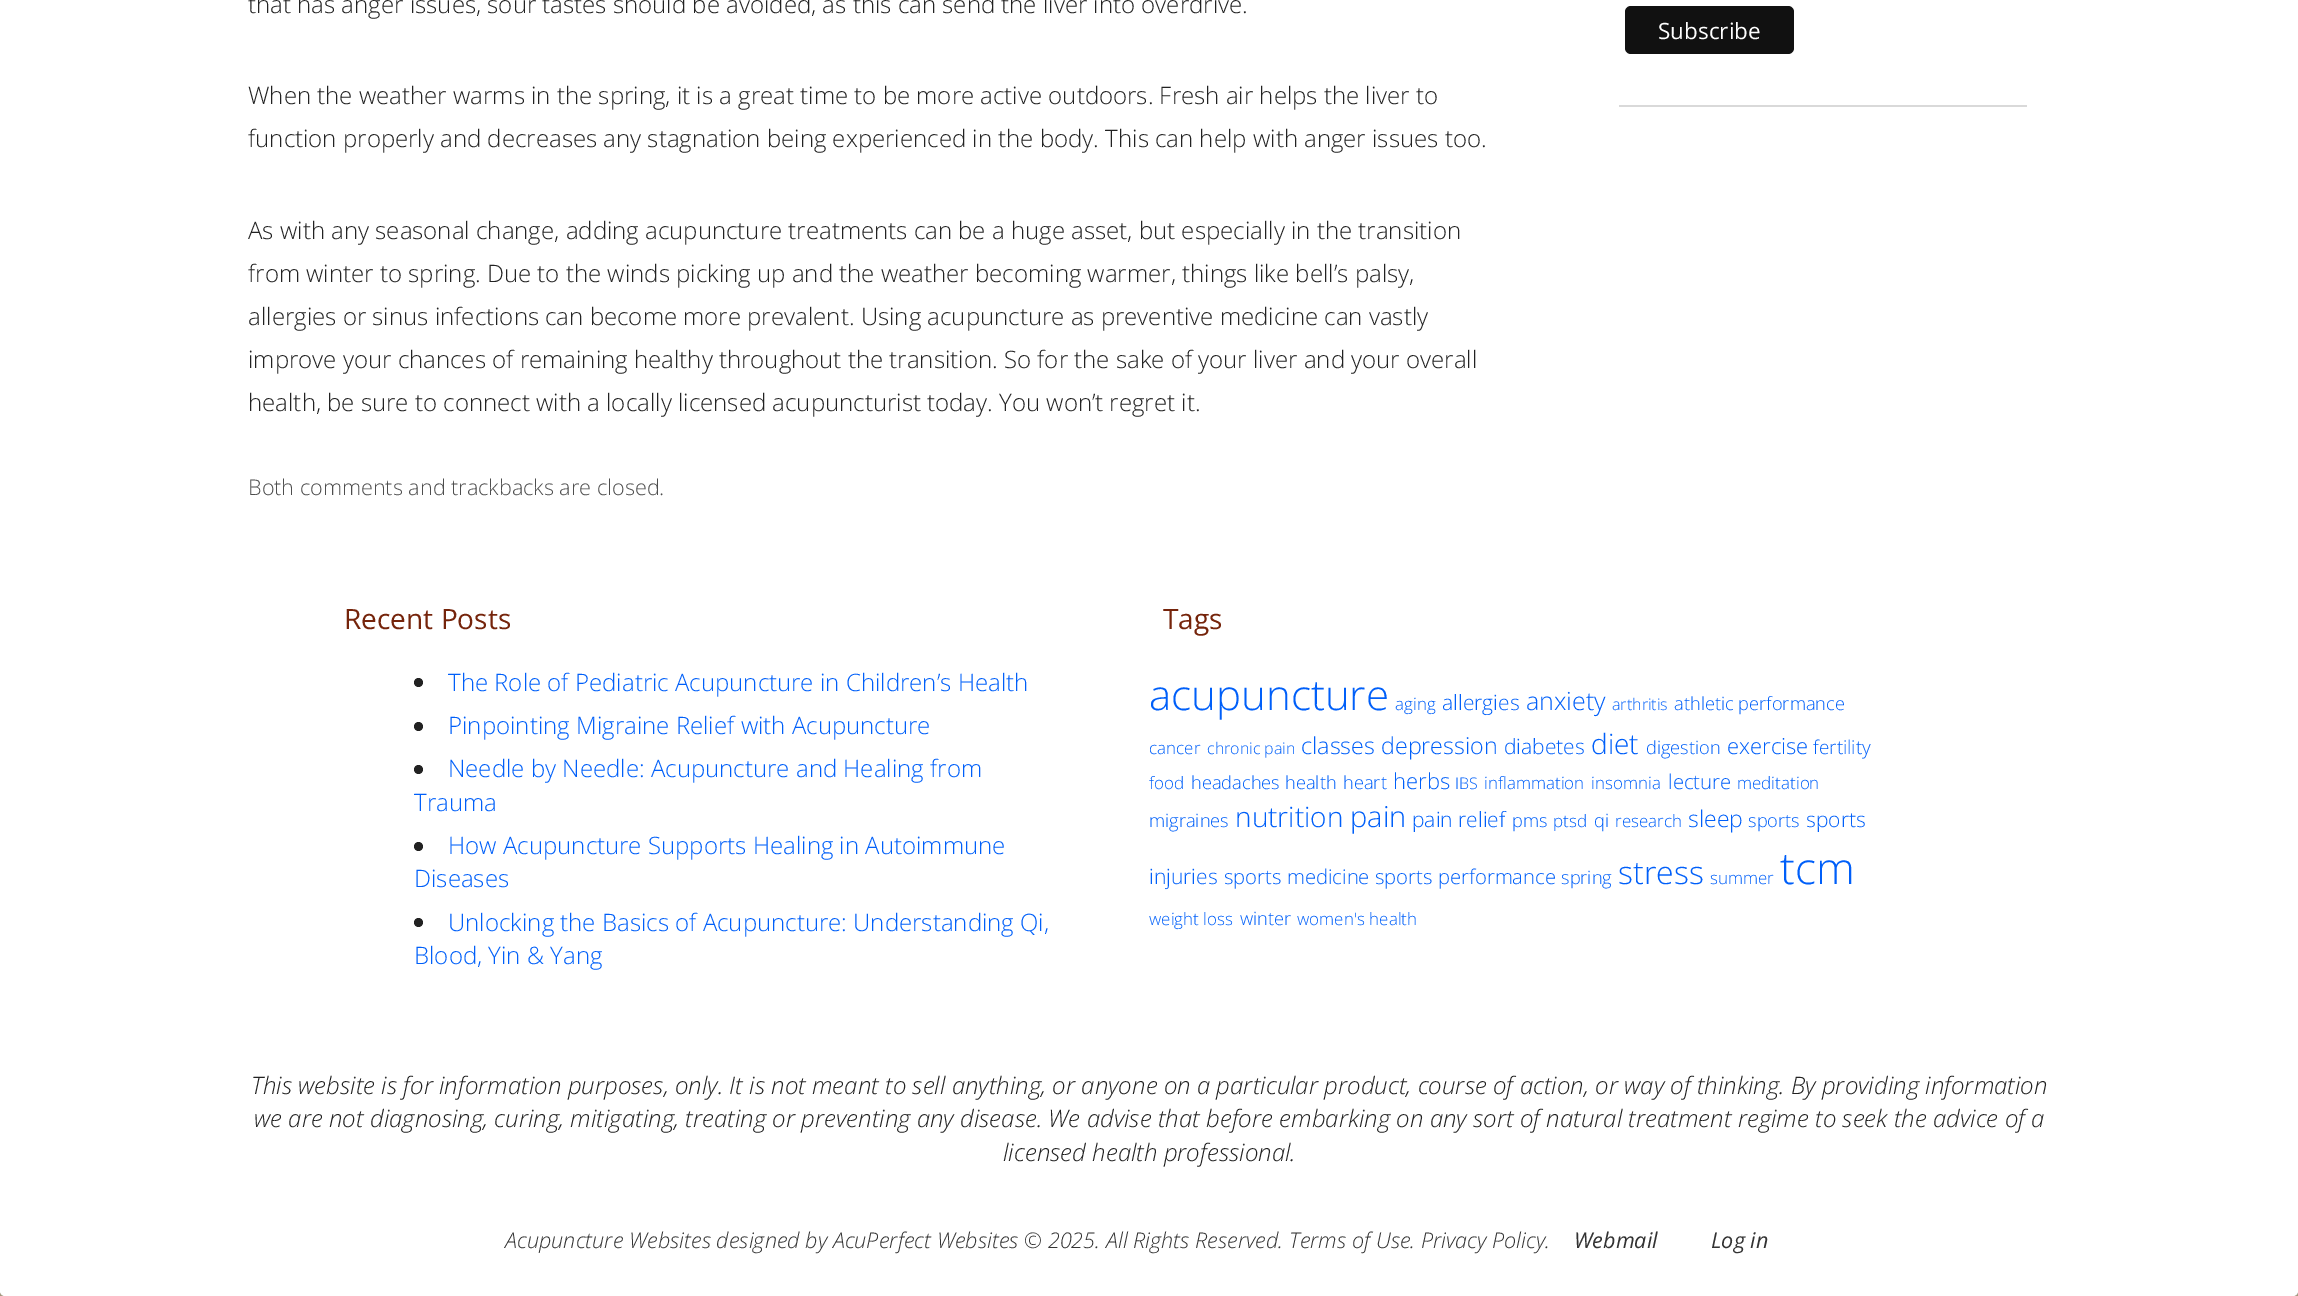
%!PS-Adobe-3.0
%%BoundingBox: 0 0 2298 1296
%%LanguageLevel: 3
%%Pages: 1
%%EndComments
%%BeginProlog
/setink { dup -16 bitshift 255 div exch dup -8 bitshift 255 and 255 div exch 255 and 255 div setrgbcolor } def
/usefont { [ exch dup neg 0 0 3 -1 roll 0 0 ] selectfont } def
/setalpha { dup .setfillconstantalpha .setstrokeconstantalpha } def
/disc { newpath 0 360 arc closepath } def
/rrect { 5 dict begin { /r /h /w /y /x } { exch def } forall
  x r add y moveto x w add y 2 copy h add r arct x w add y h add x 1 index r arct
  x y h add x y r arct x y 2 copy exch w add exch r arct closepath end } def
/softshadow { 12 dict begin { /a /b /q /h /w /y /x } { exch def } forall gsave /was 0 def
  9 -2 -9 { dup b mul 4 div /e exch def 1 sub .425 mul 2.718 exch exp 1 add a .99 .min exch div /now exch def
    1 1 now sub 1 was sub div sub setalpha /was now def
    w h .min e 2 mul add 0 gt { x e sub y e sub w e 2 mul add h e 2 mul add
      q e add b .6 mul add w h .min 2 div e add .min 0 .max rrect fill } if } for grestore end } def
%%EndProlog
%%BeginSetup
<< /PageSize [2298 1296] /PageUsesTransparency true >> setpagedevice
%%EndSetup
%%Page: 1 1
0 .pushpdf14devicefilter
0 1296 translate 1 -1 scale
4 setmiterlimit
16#E8D6AE setink
0 0 2298 1296 rectfill
16#000000 setink
0 -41 2298 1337 5 12 1 softshadow
16#FFFFFF setink
0 -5 moveto 2298 -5 lineto 2298 1291 lineto 2298 1294 2296 1296 2293 1296 curveto 5 1296 lineto 2 1296 0 1294 0 1291 curveto closepath fill
/OpenSans-Light 24 usefont
16#222222 setink
[
    [(that has anger issues, sour tastes should be avoided, as this can send the liver into overdrive.) 248 13]
    [(When the weather warms in the spring, it is a great time to be more active outdoors. Fresh air helps the liver to) 248 104]
    [(function properly and decreases any stagnation being experienced in the body. This can help with anger issues too.) 248 147]
    [(As with any seasonal change, adding acupuncture treatments can be a huge asset, but especially in the transition) 248 239]
    [(from winter to spring. Due to the winds picking up and the weather becoming warmer, things like bell’s palsy,) 248 282]
    [(allergies or sinus infections can become more prevalent. Using acupuncture as preventive medicine can vastly) 248 325]
    [(improve your chances of remaining healthy throughout the transition. So for the sake of your liver and your overall) 248 368]
    [(health, be sure to connect with a locally licensed acupuncturist today. You won’t regret it.) 248 411]
] { aload pop moveto show } forall
/OpenSans-Light 21.6 usefont
16#4E4E4E setink
248 495 moveto (Both comments and trackbacks are closed.) show
16#111111 setink
1625 6 169 48 6 rrect fill
/OpenSans-Regular 22.5 usefont
16#FFFFFF setink
1658 39 moveto (Subscribe) show
16#D9D9D9 setink
1619 105 408 2 rectfill
/OpenSans-Regular 28 usefont
16#75240B setink
344 629 moveto (Recent Posts) show
16#222222 setink
418.5 682.5 4.5 disc fill
/OpenSans-Light 24 usefont
16#005FF9 setink
448 691 moveto (The Role of Pediatric Acupuncture in Children’s Health) show
16#222222 setink
418.5 726.5 4.5 disc fill
16#005FF9 setink
448 734 moveto (Pinpointing Migraine Relief with Acupuncture) show
16#222222 setink
418.5 769.5 4.5 disc fill
16#005FF9 setink
448 777 moveto (Needle by Needle: Acupuncture and Healing from) show
414 811 moveto (Trauma) show
16#222222 setink
418.5 846.5 4.5 disc fill
16#005FF9 setink
448 854 moveto (How Acupuncture Supports Healing in Autoimmune) show
414 887 moveto (Diseases) show
16#222222 setink
418.5 922.5 4.5 disc fill
16#005FF9 setink
448 931 moveto (Unlocking the Basics of Acupuncture: Understanding Qi,) show
414 964 moveto (Blood, Yin & Yang) show
/OpenSans-Regular 28 usefont
16#75240B setink
1163 629 moveto (Tags) show
/OpenSans-Light 42 usefont
16#005FF9 setink
1149 710 moveto (acupuncture) show
/OpenSans-Light 17 usefont
1395 710 moveto (aging) show
/OpenSans-Light 21 usefont
1442 710 moveto (allergies) show
/OpenSans-Light 25 usefont
1526 710 moveto (anxiety) show
/OpenSans-Light 16 usefont
1612 710 moveto (arthritis) show
/OpenSans-Light 18.25 usefont
1674 710 moveto (athletic performance) show
/OpenSans-Light 17 usefont
1149 754 moveto (cancer) show
/OpenSans-Light 16 usefont
1207 754 moveto (chronic pain) show
/OpenSans-Light 23.25 usefont
1301 754 moveto (classes depression) show
/OpenSans-Light 21 usefont
1504 754 moveto (diabetes) show
/OpenSans-Light 28 usefont
1591 754 moveto (diet) show
/OpenSans-Light 18.25 usefont
1646 754 moveto (digestion) show
/OpenSans-Light 22 usefont
1727 754 moveto (exercise) show
/OpenSans-Light 19 usefont
1813 754 moveto (fertility) show
/OpenSans-Light 17 usefont
1149 789 moveto (food) show
/OpenSans-Light 18.25 usefont
[
    [(headaches) 1191 789]
    [(health) 1285 789]
    [(heart) 1343 789]
] { aload pop moveto show } forall
/OpenSans-Light 22 usefont
1393 789 moveto (herbs) show
/OpenSans-Light 16 usefont
1455 789 moveto (IBS) show
/OpenSans-Light 17 usefont
1484 789 moveto (inflammation) show
1591 789 moveto (insomnia) show
/OpenSans-Light 20.25 usefont
1668 789 moveto (lecture) show
/OpenSans-Light 17 usefont
1737 789 moveto (meditation) show
/OpenSans-Light 18.25 usefont
1149 827 moveto (migraines) show
/OpenSans-Light 28 usefont
1235 827 moveto (nutrition) show
/OpenSans-Light 29 usefont
1350 827 moveto (pain) show
/OpenSans-Light 21 usefont
1412 827 moveto (pain relief) show
/OpenSans-Light 18.25 usefont
1512 827 moveto (pms) show
/OpenSans-Light 17 usefont
1553 827 moveto (ptsd) show
/OpenSans-Light 18.25 usefont
1594 827 moveto (qi) show
/OpenSans-Light 17 usefont
1615 827 moveto (research) show
/OpenSans-Light 23 usefont
1688 827 moveto (sleep) show
/OpenSans-Light 18.25 usefont
1748 827 moveto (sports) show
/OpenSans-Light 21 usefont
1806 827 moveto (sports) show
1149 884 moveto (injuries) show
/OpenSans-Light 20.25 usefont
1224 884 moveto (sports medicine) show
1375 884 moveto (sports performance) show
/OpenSans-Light 18.25 usefont
1561 884 moveto (spring) show
/OpenSans-Light 32 usefont
1618 884 moveto (stress) show
/OpenSans-Light 17 usefont
1710 884 moveto (summer) show
/OpenSans-Light 44 usefont
1780 884 moveto (tcm) show
/OpenSans-Light 17 usefont
1149 925 moveto (weight loss) show
/OpenSans-Light 18.25 usefont
1240 925 moveto (winter) show
/OpenSans-Light 17 usefont
1297 925 moveto (women's health) show
/OpenSans-LightItalic 24 usefont
16#222222 setink
[
    [(This website is for information purposes, only. It is not meant to sell anything, or anyone on a particular product, course of action, or way of thinking. By providing information) 251 1094]
    [(we are not diagnosing, curing, mitigating, treating or preventing any disease. We advise that before embarking on any sort of natural treatment regime to seek the advice of a) 254 1127]
    [(licensed health professional.) 1003 1161]
] { aload pop moveto show } forall
/OpenSans-LightItalic 21.6 usefont
16#333333 setink
505 1248 moveto (Acupuncture Websites designed by AcuPerfect Websites © 2025. All Rights Reserved.) show
1289 1248 moveto (Terms of Use. Privacy Policy.) show
/OpenSans-Italic 21.6 usefont
1574 1248 moveto (Webmail) show
1711 1248 moveto (Log in) show
.poppdf14devicefilter showpage
%%EOF
